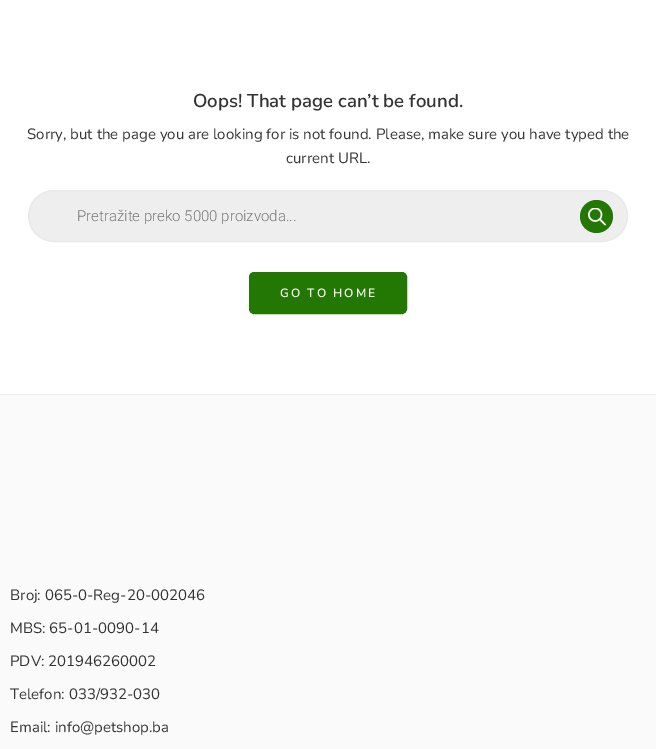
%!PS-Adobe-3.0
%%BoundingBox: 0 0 656 749
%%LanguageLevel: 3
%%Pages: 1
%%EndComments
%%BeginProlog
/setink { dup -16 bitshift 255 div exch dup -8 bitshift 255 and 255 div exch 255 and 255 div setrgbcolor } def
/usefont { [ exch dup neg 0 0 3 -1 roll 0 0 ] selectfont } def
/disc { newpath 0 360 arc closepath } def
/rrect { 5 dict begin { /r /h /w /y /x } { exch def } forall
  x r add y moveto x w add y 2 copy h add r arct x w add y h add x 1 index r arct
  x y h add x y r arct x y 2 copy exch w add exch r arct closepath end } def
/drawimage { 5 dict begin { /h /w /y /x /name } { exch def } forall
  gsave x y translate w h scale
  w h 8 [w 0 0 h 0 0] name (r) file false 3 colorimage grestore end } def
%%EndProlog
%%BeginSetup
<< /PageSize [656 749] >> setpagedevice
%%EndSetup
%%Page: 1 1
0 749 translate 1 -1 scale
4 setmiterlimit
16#FFFFFF setink
0 0 656 749 rectfill
/Nunito-SemiBold 18.6 usefont
16#333333 setink
193 107 moveto (Oops! That page can’t be found.) show
/Nunito-Regular 15 usefont
27 139 moveto (Sorry, but the page you are looking for is not found. Please, make sure you have typed the) show
286 163 moveto (current URL.) show
16#EEEEEE setink
28.5 190.5 599 51 25.5 rrect gsave fill grestore
16#E8E8E8 setink
stroke
/Roboto-Light 15 usefont
16#777777 setink
77 221 moveto (Pretražite preko 5000 proizvoda...) show
16#237803 setink
596.5 216.5 16.5 disc fill
(img1.raw) 588 208 18 18 drawimage
249.5 272.5 157 41 4.5 rrect gsave fill grestore
stroke
/Nunito-SemiBold 12 usefont
16#FFFFFF setink
280 297 moveto 2 0 (GO TO HOME) ashow
16#FAFAFA setink
0 395 656 354 rectfill
16#ECECEC setink
0 394 656 1 rectfill
/Nunito-Regular 15 usefont
16#333333 setink
[
    [(Broj: 065-0-Reg-20-002046) 10 600]
    [(MBS: 65-01-0090-14) 10 633]
    [(PDV: 201946260002) 10 666]
    [(Telefon: 033/932-030) 10 699]
    [(Email: info@petshop.ba) 10 732]
] { aload pop moveto show } forall
showpage
%%EOF
